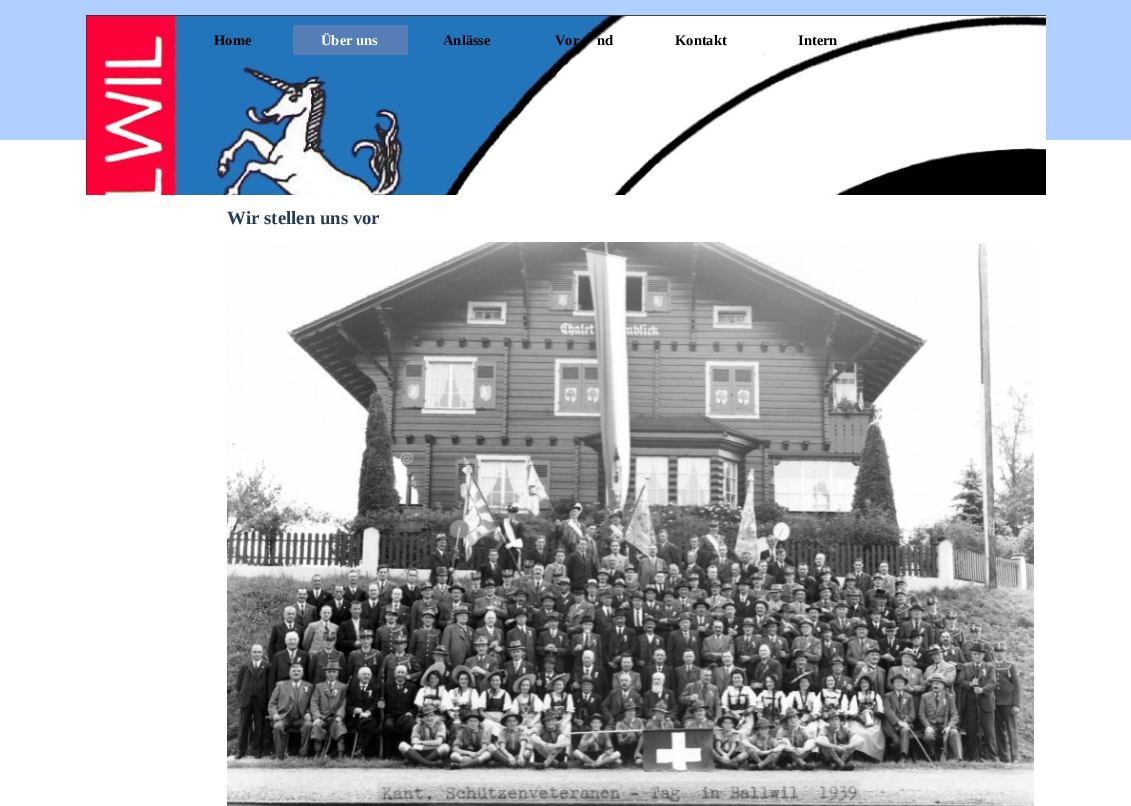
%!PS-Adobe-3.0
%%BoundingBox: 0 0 1131 806
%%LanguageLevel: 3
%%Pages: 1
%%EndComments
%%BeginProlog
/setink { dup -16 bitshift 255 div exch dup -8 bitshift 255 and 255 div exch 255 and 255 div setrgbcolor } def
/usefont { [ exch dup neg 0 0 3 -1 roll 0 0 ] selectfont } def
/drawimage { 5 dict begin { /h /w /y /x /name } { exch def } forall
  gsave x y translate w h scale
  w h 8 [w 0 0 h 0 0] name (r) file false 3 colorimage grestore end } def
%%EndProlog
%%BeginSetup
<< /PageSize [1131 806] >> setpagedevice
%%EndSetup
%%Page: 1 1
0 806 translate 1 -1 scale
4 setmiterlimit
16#FFFFFF setink
0 0 1131 806 rectfill
16#B0D1FF setink
0 0 1131 140 rectfill
(img1.raw) 86 15 960 180 drawimage
/LiberationSerif-Bold 14.5 usefont
16#000000 setink
214 45 moveto (Home) show
16#567EB6 setink
293 25 115 30 rectfill
16#FFFFFF setink
321 45 moveto (Über uns) show
16#000000 setink
[
    [(Anlässe) 443 45]
    [(Vor) 555 45]
    [(nd) 597 45]
    [(Kontakt) 675 45]
    [(Intern) 798 45]
] { aload pop moveto show } forall
/LiberationSerif-Bold 18.75 usefont
16#253A58 setink
227 224 moveto (Wir stellen uns vor) show
(img2.raw) 227 242 807 564 drawimage
showpage
%%EOF
